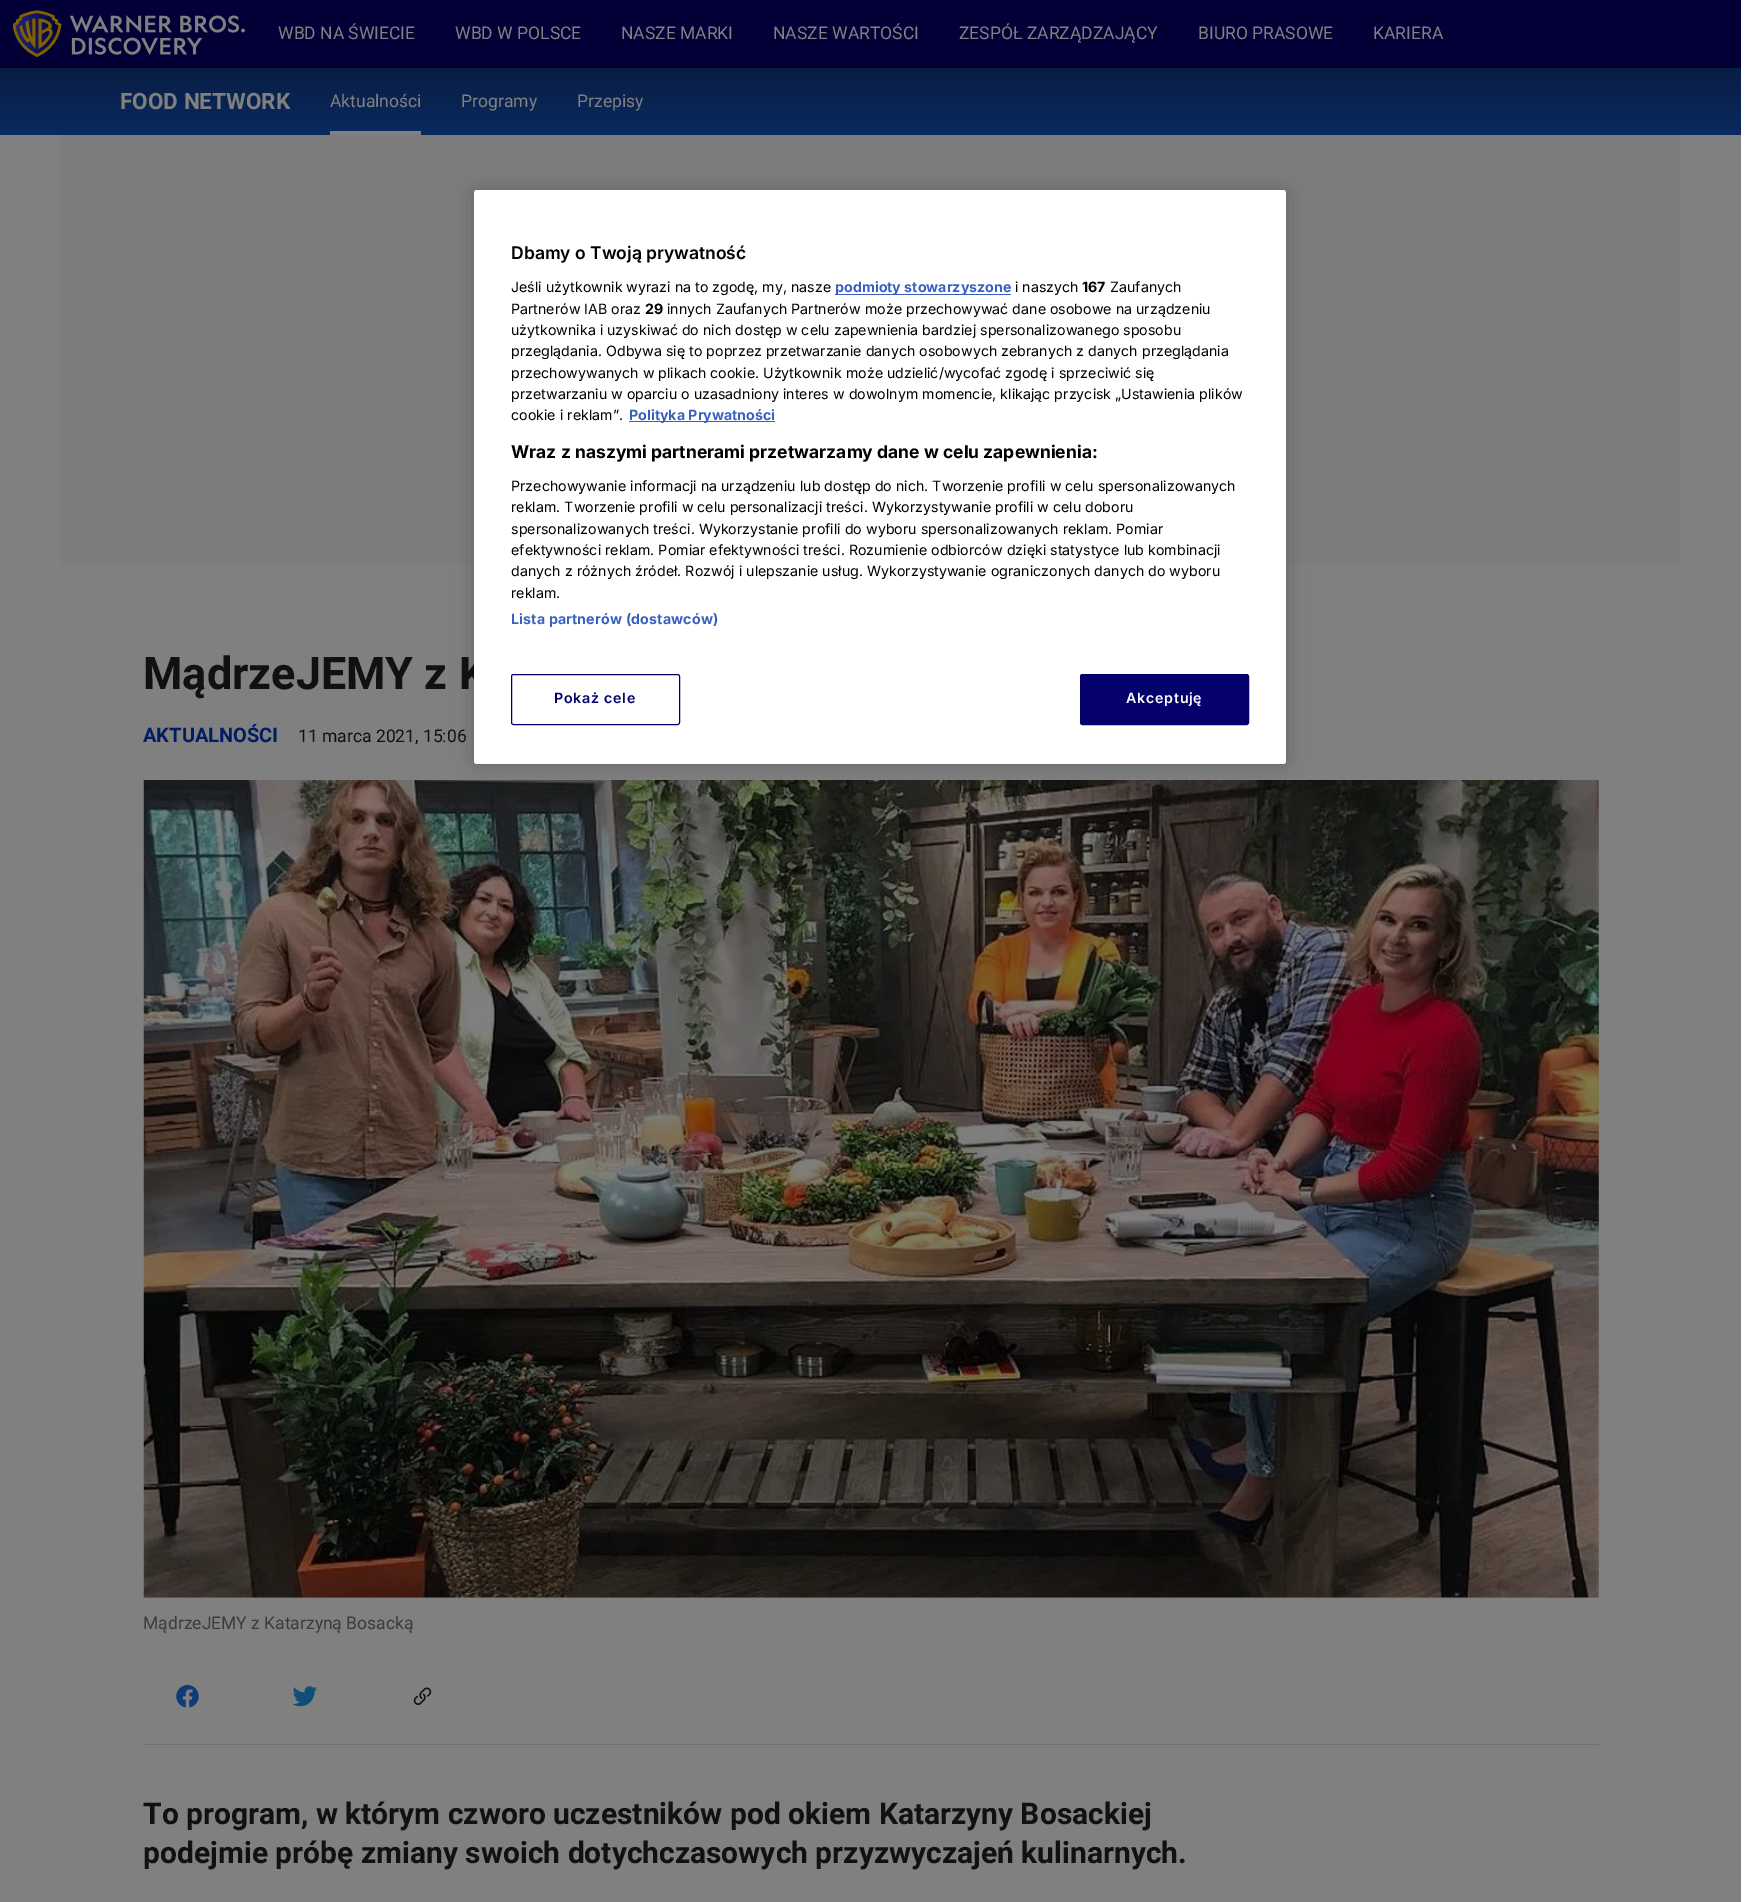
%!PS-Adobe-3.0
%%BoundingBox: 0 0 1759 1902
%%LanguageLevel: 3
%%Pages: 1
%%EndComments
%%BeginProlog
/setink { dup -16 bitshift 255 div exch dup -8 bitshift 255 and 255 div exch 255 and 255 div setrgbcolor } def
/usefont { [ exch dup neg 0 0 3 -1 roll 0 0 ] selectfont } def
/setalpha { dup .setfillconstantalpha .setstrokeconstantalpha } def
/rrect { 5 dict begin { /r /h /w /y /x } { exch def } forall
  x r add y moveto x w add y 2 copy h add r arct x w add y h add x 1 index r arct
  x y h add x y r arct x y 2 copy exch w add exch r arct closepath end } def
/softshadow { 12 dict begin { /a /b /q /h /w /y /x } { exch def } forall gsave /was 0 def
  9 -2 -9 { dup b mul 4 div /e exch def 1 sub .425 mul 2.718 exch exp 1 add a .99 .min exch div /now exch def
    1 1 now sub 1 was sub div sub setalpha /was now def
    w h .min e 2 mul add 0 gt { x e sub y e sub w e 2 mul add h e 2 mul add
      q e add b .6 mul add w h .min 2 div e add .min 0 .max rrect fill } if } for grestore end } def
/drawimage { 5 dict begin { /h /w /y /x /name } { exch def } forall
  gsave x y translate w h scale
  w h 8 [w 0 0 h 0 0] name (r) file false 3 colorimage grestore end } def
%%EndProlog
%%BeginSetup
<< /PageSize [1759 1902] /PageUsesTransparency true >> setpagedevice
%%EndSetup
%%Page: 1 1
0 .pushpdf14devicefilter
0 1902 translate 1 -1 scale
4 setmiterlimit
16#FFFFFF setink
0 0 1759 1902 rectfill
16#808080 setink
0 135 1741 1767 rectfill
16#020036 setink
0 0 1741 68 rectfill
(img1.raw) 13 10 232 47 drawimage
/Roboto-Regular 17.5 usefont
16#808080 setink
[
    [(WBD NA ŚWIECIE) 278 39]
    [(WBD W POLSCE) 455 39]
    [(NASZE MARKI) 621 39]
    [(NASZE WARTOŚCI) 773 39]
    [(ZESPÓŁ ZARZĄDZAJĄCY) 959 39]
    [(BIURO PRASOWE) 1198 39]
    [(KARIERA) 1373 39]
] { aload pop moveto show } forall
gsave 0 68 moveto 1741 68 lineto 1741 135 lineto 0 135 lineto closepath clip newpath
<< /ShadingType 2 /ColorSpace /DeviceRGB /Coords [871 67 871 135] /Extend [true true] /Function << /FunctionType 2 /Domain [0 1] /C0 [0.031 0.114 0.263] /C1 [0.043 0.165 0.376] /N 1 >> >> shfill grestore
/Roboto-Bold 22.5 usefont
120 109 moveto (FOOD NETWORK) show
/Roboto-Regular 17.5 usefont
330 107 moveto (Aktualności) show
330 131 91 4 rectfill
461 107 moveto (Programy) show
577 107 moveto (Przepisy) show
16#7D7D7D setink
61 135 1620 430 rectfill
/Roboto-Bold 45 usefont
16#111111 setink
143 689 moveto (MądrzeJEMY z K) show
/Roboto-Bold 20 usefont
16#011C62 setink
143 742 moveto (AKTUALNOŚCI) show
/Roboto-Regular 17.5 usefont
16#111111 setink
298 742 moveto (11 marca 2021, 15:06) show
16#757575 setink
144 780 1455 818 rectfill
(img2.raw) 143 780 1456 818 drawimage
16#3B3B3B setink
143 1629 moveto (MądrzeJEMY z Katarzyną Bosacką) show
16#707070 setink
144 1744 1455 1 rectfill
(img3.raw) 176 1685 23 23 drawimage
(img4.raw) 293 1686 24 21 drawimage
(img5.raw) 413 1687 19 18 drawimage
/Roboto-Bold 30 usefont
16#111111 setink
143 1824 moveto (To program, w którym czworo uczestników pod okiem Katarzyny Bosackiej) show
143 1863 moveto (podejmie próbę zmiany swoich dotychczasowych przyzwyczajeń kulinarnych.) show
16#000000 setink
474 190 812 574 3 11 0.2 softshadow
16#FFFFFF setink
474 190 812 574 3 rrect fill
/Inter-SemiBold 17.5 usefont
16#000000 setink
511 259 moveto (Dbamy o Twoją prywatność) show
/Inter-Regular 14.23 usefont
511 292 moveto (Jeśli użytkownik wyrazi na to zgodę, my, nasze) show
16#3860BE setink
835 294 176 1 rectfill
/Inter-Bold 14.23 usefont
835 292 moveto (podmioty stowarzyszone) show
/Inter-Regular 14.23 usefont
16#000000 setink
1015 292 moveto (i naszych) show
/Inter-Bold 14.23 usefont
1082 292 moveto (167) show
/Inter-Regular 14.23 usefont
1110 292 moveto (Zaufanych) show
511 314 moveto (Partnerów IAB oraz) show
/Inter-Bold 14.23 usefont
645 314 moveto (29) show
/Inter-Regular 14.23 usefont
[
    [(innych Zaufanych Partnerów może przechowywać dane osobowe na urządzeniu) 667 314]
    [(użytkownika i uzyskiwać do nich dostęp w celu zapewnienia bardziej spersonalizowanego sposobu) 511 335]
    [(przeglądania. Odbywa się to poprzez przetwarzanie danych osobowych zebranych z danych przeglądania) 511 356]
    [(przechowywanych w plikach cookie. Użytkownik może udzielić/wycofać zgodę i sprzeciwić się) 511 378]
    [(przetwarzaniu w oparciu o uzasadniony interes w dowolnym momencie, klikając przycisk „Ustawienia plików) 511 399]
    [(cookie i reklam”.) 511 420]
] { aload pop moveto show } forall
16#3860BE setink
629 421 146 1 rectfill
/Inter-Bold 14.23 usefont
629 420 moveto (Polityka Prywatności) show
/Inter-Bold 17.5 usefont
16#000000 setink
511 458 moveto (Wraz z naszymi partnerami przetwarzamy dane w celu zapewnienia:) show
/Inter-Regular 14.23 usefont
[
    [(Przechowywanie informacji na urządzeniu lub dostęp do nich. Tworzenie profili w celu spersonalizowanych) 511 491]
    [(reklam. Tworzenie profili w celu personalizacji treści. Wykorzystywanie profili w celu doboru) 511 512]
    [(spersonalizowanych treści. Wykorzystanie profili do wyboru spersonalizowanych reklam. Pomiar) 511 534]
    [(efektywności reklam. Pomiar efektywności treści. Rozumienie odbiorców dzięki statystyce lub kombinacji) 511 555]
    [(danych z różnych źródeł. Rozwój i ulepszanie usług. Wykorzystywanie ograniczonych danych do wyboru) 511 576]
    [(reklam.) 511 598]
] { aload pop moveto show } forall
/Inter-Bold 14.23 usefont
16#3860BE setink
511 624 moveto 0.15 0 (Lista partnerów \(dostawców\)) ashow
16#04006C setink
511.5 674.5 168 50 2 rrect stroke
/Inter-SemiBold 14.23 usefont
554 703 moveto 0.75 0 (Pokaż cele) ashow
1080.5 674.5 168 50 2 rrect gsave fill grestore
stroke
16#FFFFFF setink
1126 703 moveto 0.75 0 (Akceptuję) ashow
.poppdf14devicefilter showpage
%%EOF
